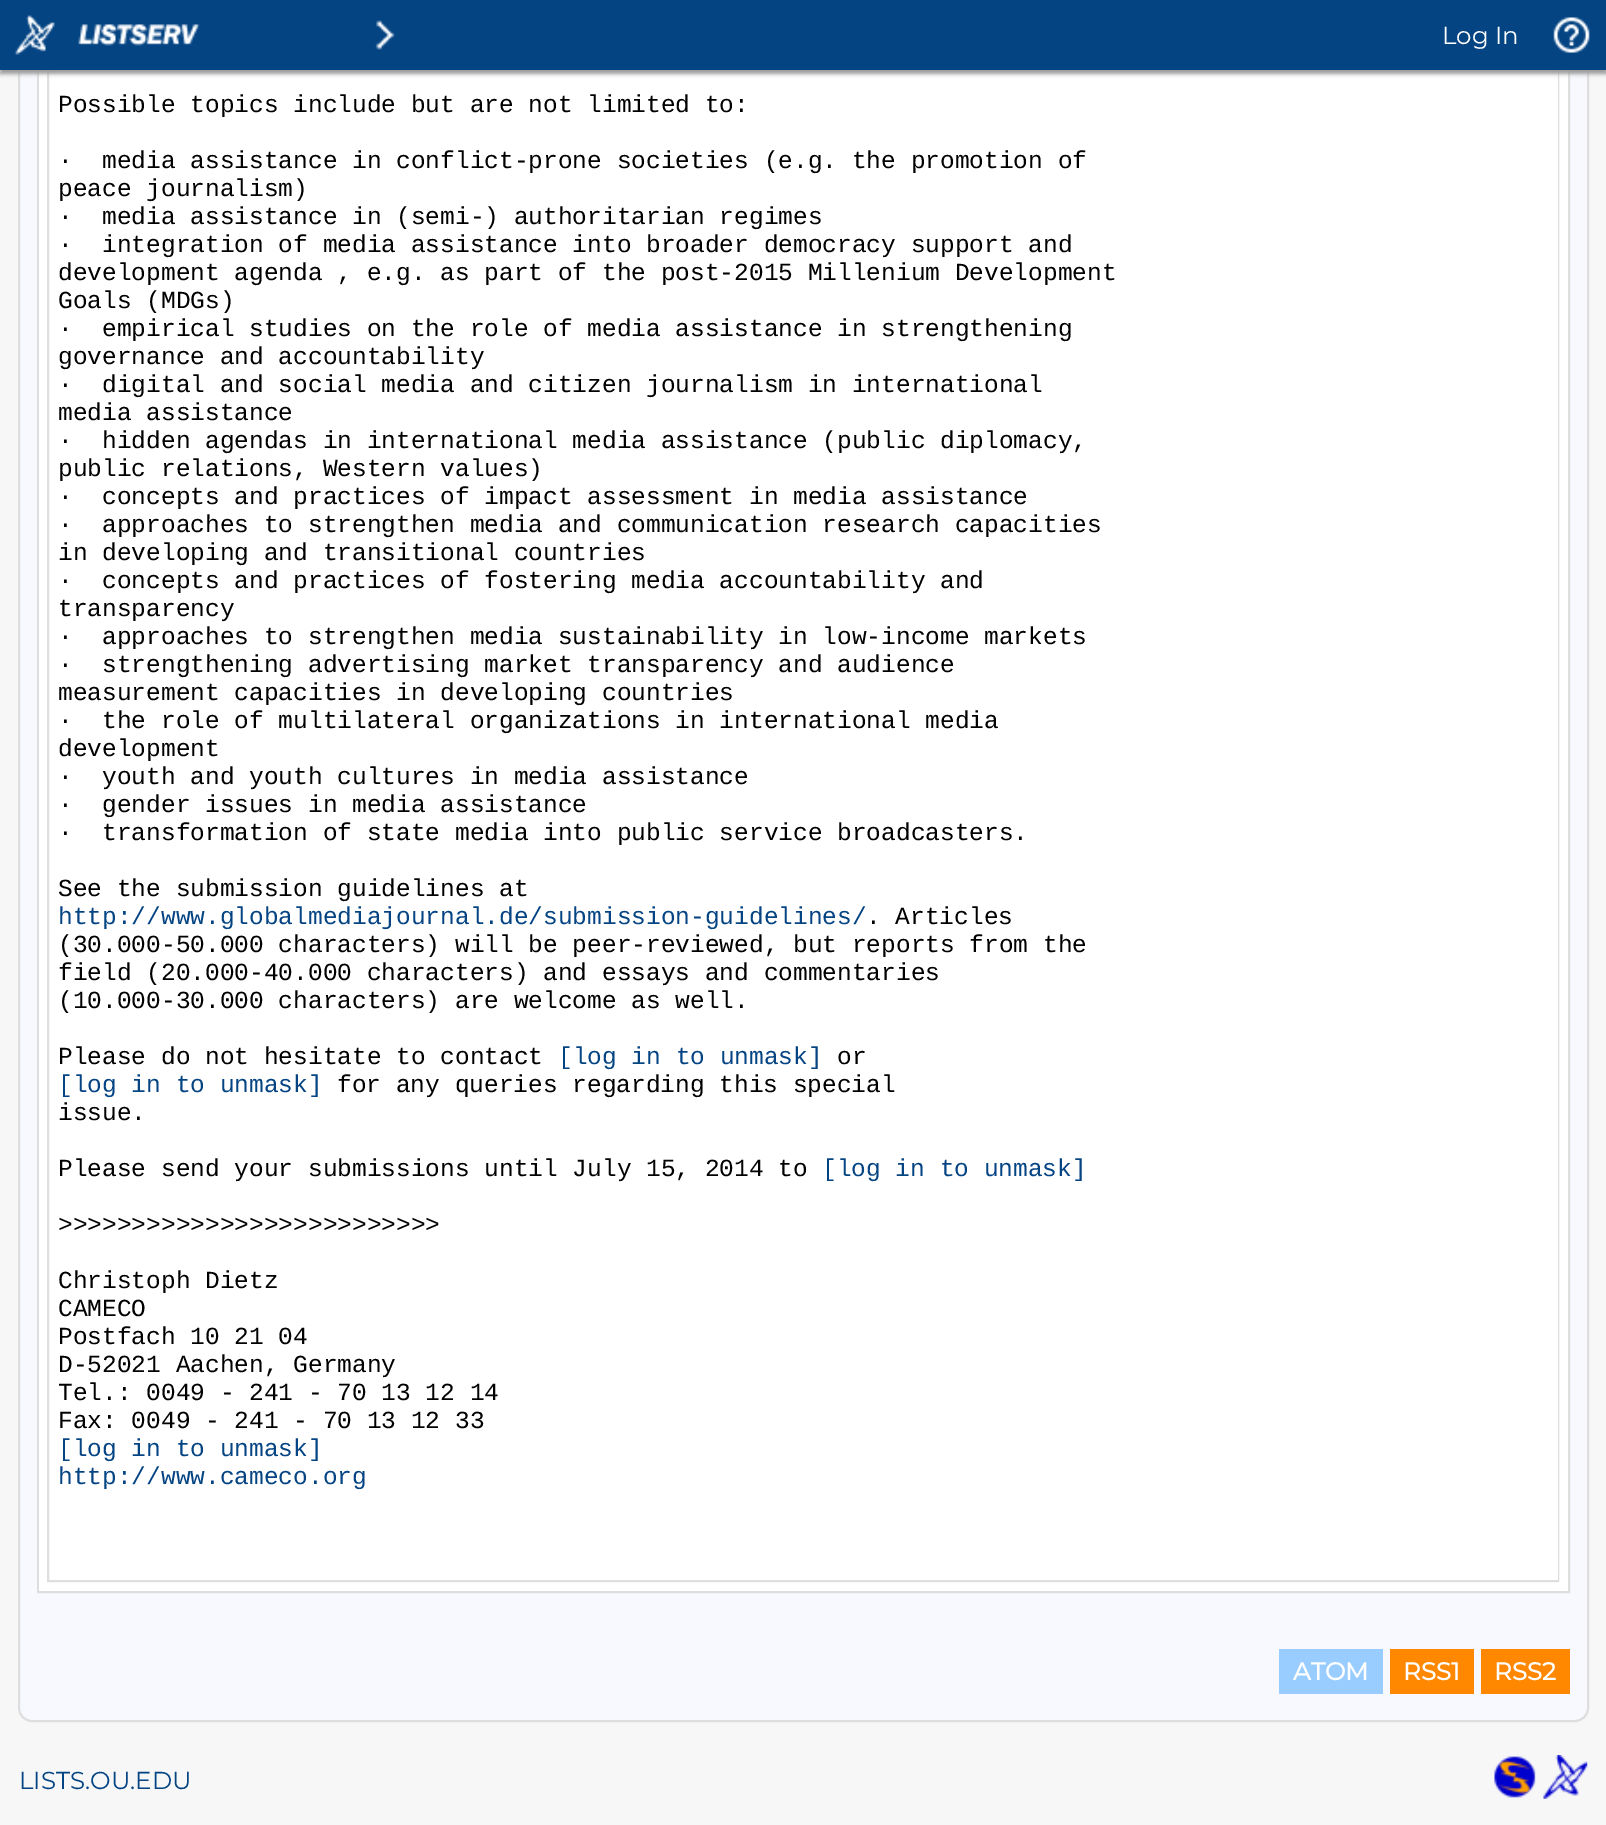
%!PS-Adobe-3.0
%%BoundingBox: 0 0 1606 1825
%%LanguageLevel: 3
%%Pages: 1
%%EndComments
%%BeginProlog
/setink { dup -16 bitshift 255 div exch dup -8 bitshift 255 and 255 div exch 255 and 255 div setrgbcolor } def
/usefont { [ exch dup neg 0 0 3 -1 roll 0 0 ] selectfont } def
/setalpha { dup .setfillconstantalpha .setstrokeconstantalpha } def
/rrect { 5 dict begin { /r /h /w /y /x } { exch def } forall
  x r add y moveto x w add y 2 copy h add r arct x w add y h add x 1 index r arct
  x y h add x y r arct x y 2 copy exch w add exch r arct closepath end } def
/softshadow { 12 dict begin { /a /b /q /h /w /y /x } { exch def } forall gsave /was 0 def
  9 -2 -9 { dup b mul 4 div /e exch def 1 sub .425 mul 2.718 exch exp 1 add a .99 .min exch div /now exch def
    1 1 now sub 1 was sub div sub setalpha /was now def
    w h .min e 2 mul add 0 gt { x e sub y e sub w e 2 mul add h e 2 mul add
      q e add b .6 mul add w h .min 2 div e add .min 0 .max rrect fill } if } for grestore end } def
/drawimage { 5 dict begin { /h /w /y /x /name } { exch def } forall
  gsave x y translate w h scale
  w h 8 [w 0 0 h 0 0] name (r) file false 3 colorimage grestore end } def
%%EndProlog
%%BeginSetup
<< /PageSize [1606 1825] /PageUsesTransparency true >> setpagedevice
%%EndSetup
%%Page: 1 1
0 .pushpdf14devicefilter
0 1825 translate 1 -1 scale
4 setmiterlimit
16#F7F7F7 setink
0 0 1606 1825 rectfill
16#F7F9FE setink
19 -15 1569 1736 13 rrect gsave fill grestore
16#DEDEDE setink
2 setlinewidth
stroke
38 -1 1531 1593 rectstroke
16#FFFFFF setink
39 70 1529 1521 rectfill
16#DEDEDE setink
48 -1 1510 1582 rectstroke
16#FFFFFF setink
1557 70 1 1510 rectfill
16#999999 setink
0 4 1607 70 0 2 1 softshadow
16#054483 setink
0 0 1606 70 rectfill
(img1.raw) 15 15 40 40 drawimage
(img2.raw) 78 24 122 22 drawimage
(img3.raw) 375 20 20 30 drawimage
/Montserrat-Thin 24.5 usefont
16#FFFFFF setink
1442 44 moveto (Log In) show
(img4.raw) 1553 17 37 36 drawimage
/LiberationMono-Regular 24.5 usefont
16#000000 setink
[
    [(Possible topics include but are not limited to:) 58 112]
    [(·  media assistance in conflict-prone societies \(e.g. the promotion of) 58 168]
    [(peace journalism\)) 58 196]
    [(·  media assistance in \(semi-\) authoritarian regimes) 58 224]
    [(·  integration of media assistance into broader democracy support and) 58 252]
    [(development agenda , e.g. as part of the post-2015 Millenium Development) 58 280]
    [(Goals \(MDGs\)) 58 308]
    [(·  empirical studies on the role of media assistance in strengthening) 58 336]
    [(governance and accountability) 58 364]
    [(·  digital and social media and citizen journalism in international) 58 392]
    [(media assistance) 58 420]
    [(·  hidden agendas in international media assistance \(public diplomacy,) 58 448]
    [(public relations, Western values\)) 58 476]
    [(·  concepts and practices of impact assessment in media assistance) 58 504]
    [(·  approaches to strengthen media and communication research capacities) 58 532]
    [(in developing and transitional countries) 58 560]
    [(·  concepts and practices of fostering media accountability and) 58 588]
    [(transparency) 58 616]
    [(·  approaches to strengthen media sustainability in low-income markets) 58 644]
    [(·  strengthening advertising market transparency and audience) 58 672]
    [(measurement capacities in developing countries) 58 700]
    [(·  the role of multilateral organizations in international media) 58 728]
    [(development) 58 756]
    [(·  youth and youth cultures in media assistance) 58 784]
    [(·  gender issues in media assistance) 58 812]
    [(·  transformation of state media into public service broadcasters.) 58 840]
    [(See the submission guidelines at) 58 896]
] { aload pop moveto show } forall
16#054483 setink
58 924 moveto (http://www.globalmediajournal.de/submission-guidelines/) show
16#000000 setink
[
    [(. Articles) 866 924]
    [(\(30.000-50.000 characters\) will be peer-reviewed, but reports from the) 58 952]
    [(field \(20.000-40.000 characters\) and essays and commentaries) 58 980]
    [(\(10.000-30.000 characters\) are welcome as well.) 58 1008]
    [(Please do not hesitate to contact) 58 1064]
] { aload pop moveto show } forall
16#054483 setink
558 1064 moveto ([log in to unmask]) show
16#000000 setink
837 1064 moveto (or) show
16#054483 setink
58 1092 moveto ([log in to unmask]) show
16#000000 setink
[
    [(for any queries regarding this special) 337 1092]
    [(issue.) 58 1120]
    [(Please send your submissions until July 15, 2014 to) 58 1176]
] { aload pop moveto show } forall
16#054483 setink
822 1176 moveto ([log in to unmask]) show
16#000000 setink
[
    [(>>>>>>>>>>>>>>>>>>>>>>>>>>) 58 1232]
    [(Christoph Dietz) 58 1288]
    [(CAMECO) 58 1316]
    [(Postfach 10 21 04) 58 1344]
    [(D-52021 Aachen, Germany) 58 1372]
    [(Tel.: 0049 - 241 - 70 13 12 14) 58 1400]
    [(Fax: 0049 - 241 - 70 13 12 33) 58 1428]
] { aload pop moveto show } forall
16#054483 setink
58 1456 moveto ([log in to unmask]) show
58 1484 moveto (http://www.cameco.org) show
16#99CCFF setink
1279 1649 104 45 rectfill
/Montserrat-Bold 24.5 usefont
16#FFFFFF setink
1293 1680 moveto (ATOM) show
16#FF8800 setink
1390 1649 84 45 rectfill
16#FFFFFF setink
1403 1680 moveto (RSS1) show
16#FF8800 setink
1481 1649 89 45 rectfill
16#FFFFFF setink
1494 1680 moveto (RSS2) show
/Montserrat-Thin 24.5 usefont
16#054483 setink
19 1789 moveto (LISTS.OU.EDU) show
(img5.raw) 1494 1756 42 42 drawimage
(img6.raw) 1543 1755 45 44 drawimage
.poppdf14devicefilter showpage
%%EOF
